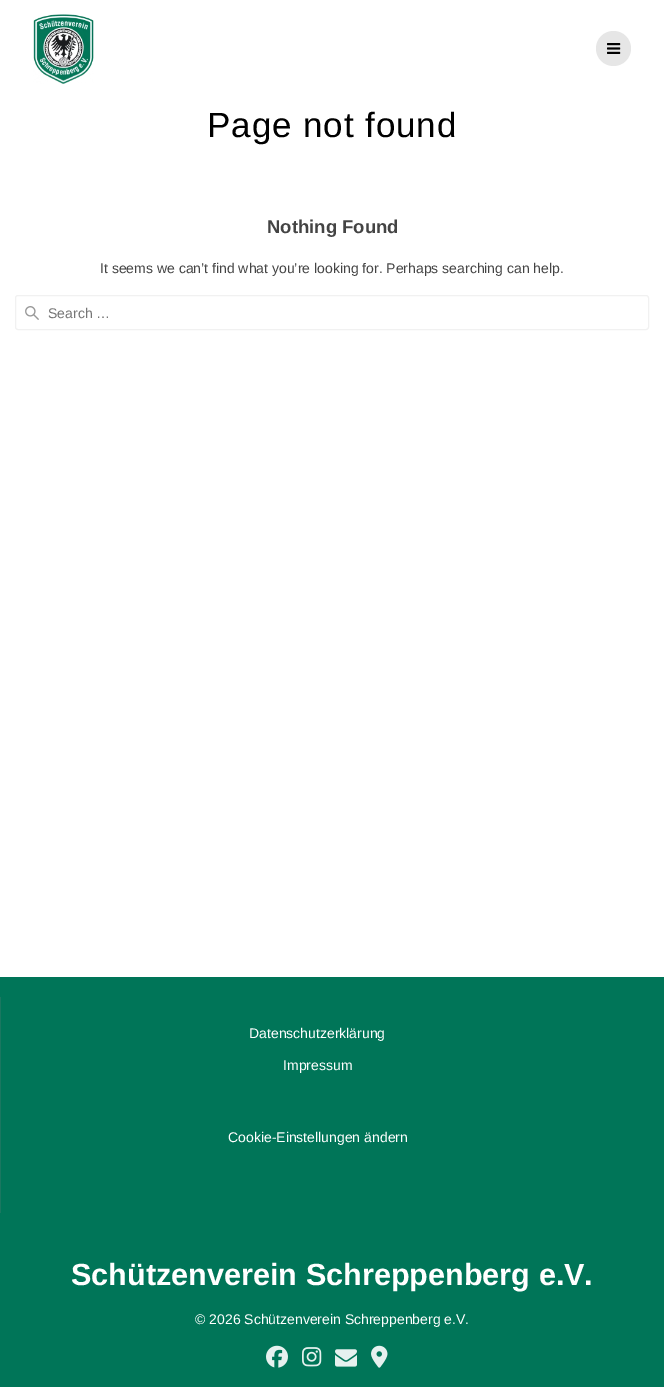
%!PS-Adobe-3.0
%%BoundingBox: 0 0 664 1387
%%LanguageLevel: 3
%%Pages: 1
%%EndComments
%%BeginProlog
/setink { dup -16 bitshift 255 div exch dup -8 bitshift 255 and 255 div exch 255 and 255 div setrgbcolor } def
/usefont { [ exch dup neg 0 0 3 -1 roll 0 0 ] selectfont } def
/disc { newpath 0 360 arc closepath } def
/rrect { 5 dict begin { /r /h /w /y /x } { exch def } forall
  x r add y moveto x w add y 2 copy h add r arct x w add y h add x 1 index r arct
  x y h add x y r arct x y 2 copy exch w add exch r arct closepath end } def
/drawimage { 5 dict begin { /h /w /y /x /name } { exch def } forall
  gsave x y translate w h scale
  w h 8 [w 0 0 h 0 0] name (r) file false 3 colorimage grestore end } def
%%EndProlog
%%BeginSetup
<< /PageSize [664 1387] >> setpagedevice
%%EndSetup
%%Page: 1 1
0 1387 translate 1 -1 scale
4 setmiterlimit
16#FFFFFF setink
0 0 664 1387 rectfill
(img1.raw) 33 14 61 70 drawimage
16#E6E6E6 setink
613.5 48.5 17.5 disc fill
(img2.raw) 607 43 14 11 drawimage
/LiberationSans-Regular 35 usefont
16#000000 setink
207 137 moveto 0.9 0 (Page not found) ashow
/LiberationSans-Bold 18.5 usefont
16#444444 setink
267 233 moveto (Nothing Found) show
/LiberationSans-Regular 14 usefont
100 273 moveto (It seems we can’t find what you’re looking for. Perhaps searching can help.) show
(img3.raw) 25 306 14 14 drawimage
16#F1F1F1 setink
15.5 295.5 633 34 2.5 rrect stroke
16#757575 setink
48 318 moveto (Search …) show
16#007558 setink
0 977 664 410 rectfill
16#1A7760 setink
0 997 1 216 rectfill
16#FFFFFF setink
[
    [(Datenschutzerklärung) 249 1038]
    [(Impressum) 283 1070]
    [(Cookie-Einstellungen ändern) 228 1142]
] { aload pop moveto show } forall
/LiberationSans-Bold 30.6 usefont
71 1285 moveto (Schützenverein Schreppenberg e.V.) show
/LiberationSans-Regular 14 usefont
195 1324 moveto (© 2026 Schützenverein Schreppenberg e.V.) show
(img4.raw) 266 1345 22 23 drawimage
(img5.raw) 302 1347 20 20 drawimage
(img6.raw) 335 1349 22 18 drawimage
(img7.raw) 371 1345 17 23 drawimage
showpage
%%EOF
